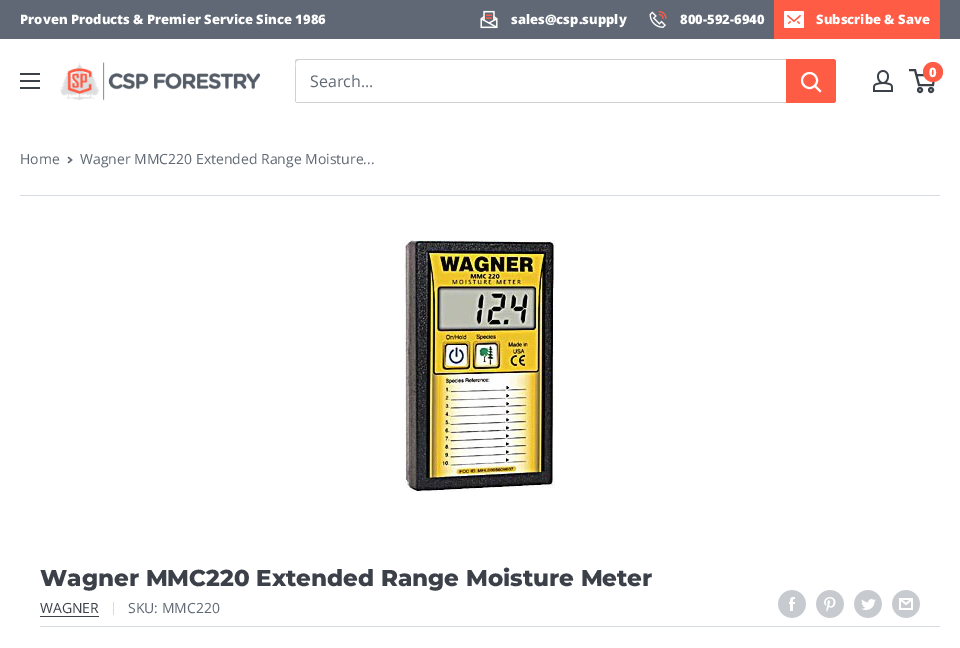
%!PS-Adobe-3.0
%%BoundingBox: 0 0 960 648
%%LanguageLevel: 3
%%Pages: 1
%%EndComments
%%BeginProlog
/setink { dup -16 bitshift 255 div exch dup -8 bitshift 255 and 255 div exch 255 and 255 div setrgbcolor } def
/usefont { [ exch dup neg 0 0 3 -1 roll 0 0 ] selectfont } def
/disc { newpath 0 360 arc closepath } def
/drawimage { 5 dict begin { /h /w /y /x /name } { exch def } forall
  gsave x y translate w h scale
  w h 8 [w 0 0 h 0 0] name (r) file false 3 colorimage grestore end } def
%%EndProlog
%%BeginSetup
<< /PageSize [960 648] >> setpagedevice
%%EndSetup
%%Page: 1 1
0 648 translate 1 -1 scale
4 setmiterlimit
16#FFFFFF setink
0 0 960 648 rectfill
16#5F6874 setink
0 0 960 39 rectfill
/OpenSans-ExtraBold 13 usefont
16#FFFFFF setink
20 24 moveto (Proven Products & Premier Service Since 1986) show
(img1.raw) 480 10 18 19 drawimage
511 24 moveto (sales@csp.supply) show
(img2.raw) 649 11 18 17 drawimage
680 24 moveto (800-592-6940) show
16#FF5C46 setink
774 0 166 39 rectfill
(img3.raw) 784 11 20 17 drawimage
16#FFFFFF setink
816 24 moveto (Subscribe & Save) show
(img4.raw) 20 73 20 16 drawimage
(img5.raw) 60 62 200 39 drawimage
16#CFD2D5 setink
296 102 moveto 296 103 297 103 298 103 curveto 833 103 lineto 835 103 836 102 836 100 curveto 836 62 lineto 836 61 836 60 835 60 curveto 835 93 lineto 835 95 837 102 832 102 curveto closepath fill
299 60 moveto 835 60 lineto 835 59 834 59 833 59 curveto 298 59 lineto 296 59 295 60 295 62 curveto 295 100 lineto 295 101 295 102 296 102 curveto 296 69 lineto 296 67 294 60 299 60 curveto closepath fill
/OpenSans-Regular 16 usefont
16#5F6874 setink
310 87 moveto (Search...) show
16#FF5C46 setink
786 59 moveto 833 59 lineto 834.5 59 836 60.5 836 62 curveto 836 100 lineto 836 101.5 834.5 103 833 103 curveto 786 103 lineto closepath fill
16#FFFFFF setink
2 setlinewidth
2 setlinecap
820 91 moveto 815 86 lineto stroke
0 setlinecap
809.5 80.5 7.5 disc stroke
(img6.raw) 873 70 20 22 drawimage
16#3C4149 setink
916.5 75 moveto 934.5 75 lineto 933 85 lineto 919 85 lineto 915 70 lineto 909 70 lineto stroke
16#FF5C46 setink
933 72 10 disc fill
/OpenSans-ExtraBold 13 usefont
16#FFFFFF setink
929 77 moveto (0) show
16#3C4149 setink
920 90 2 disc stroke
931 90 2 disc stroke
/OpenSans-Regular 14 usefont
16#5F6874 setink
20 164 moveto (Home) show
1.3 setlinewidth
1 setlinecap
68.5 157.5 moveto 71.5 160 lineto 68.5 162.5 lineto stroke
80 164 moveto (Wagner MMC220 Extended Range Moisture...) show
16#D6DBE2 setink
20 195 920 1 rectfill
(img7.raw) 402 240 153 252 drawimage
/Montserrat-ExtraBold 23 usefont
16#3C4149 setink
40 586 moveto (Wagner MMC220 Extended Range Moisture Meter) show
/OpenSans-Regular 14 usefont
40 613 moveto (WAGNER) show
40 616 59 1 rectfill
16#D6DBE2 setink
113 602 1 13 rectfill
16#5F6874 setink
128 613 moveto (SKU: MMC220) show
(img8.raw) 778 590 28 28 drawimage
(img9.raw) 816 590 28 28 drawimage
(img10.raw) 854 590 28 28 drawimage
(img11.raw) 892 590 28 28 drawimage
16#D6DBE2 setink
40 626 900 1 rectfill
showpage
%%EOF
